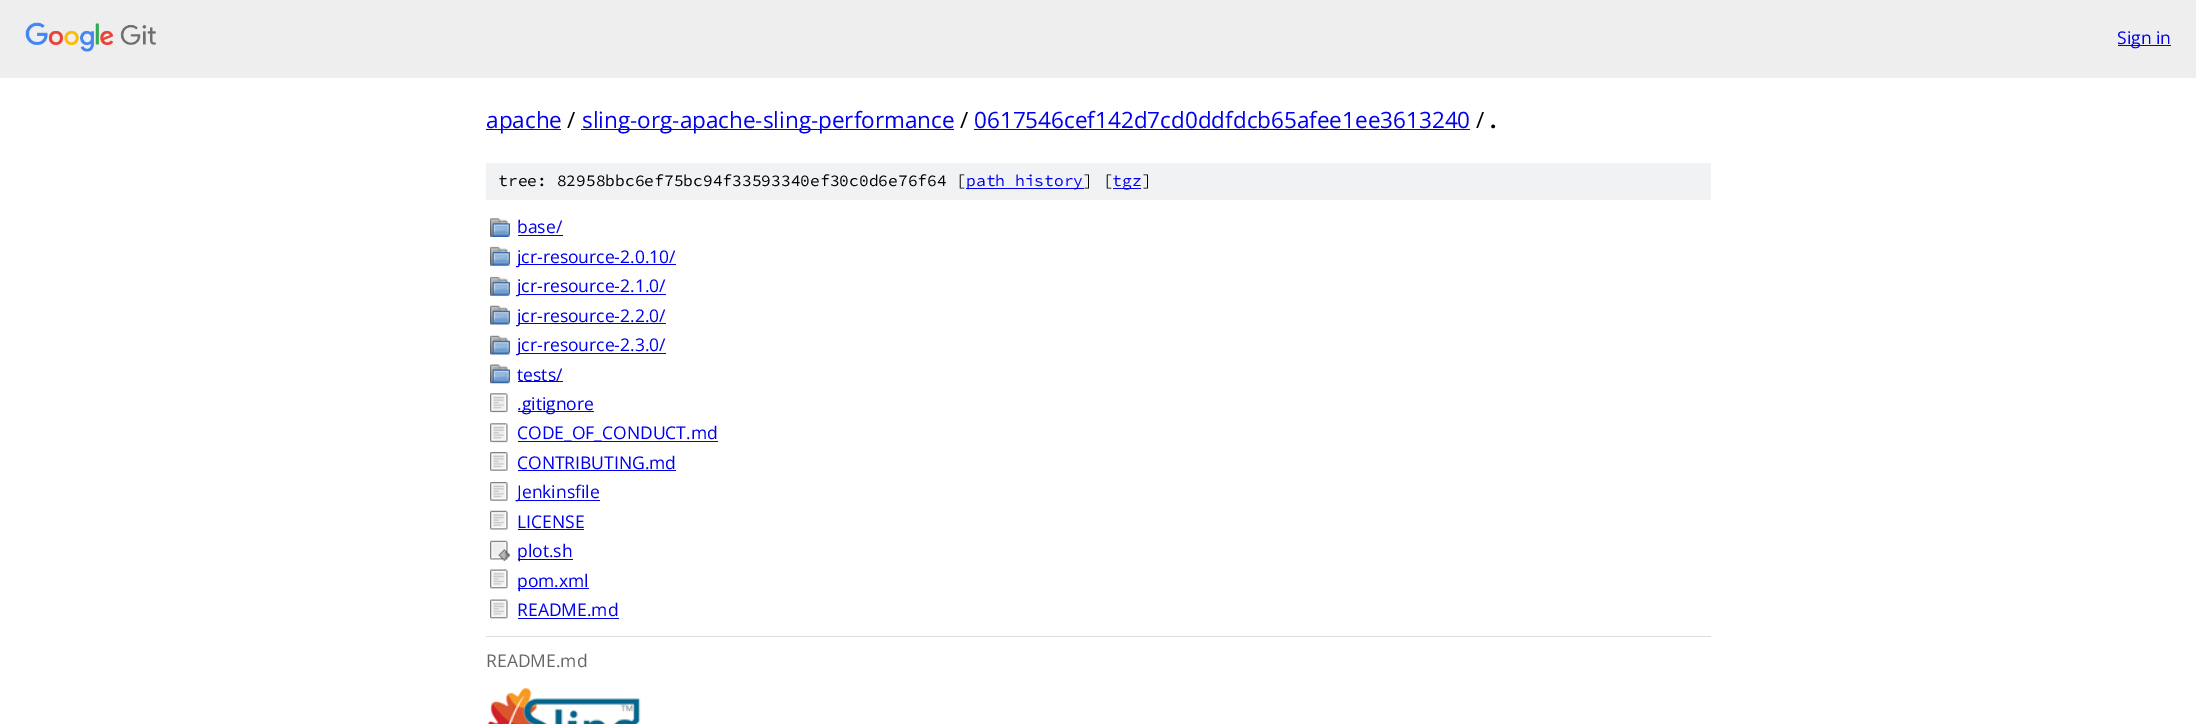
%!PS-Adobe-3.0
%%BoundingBox: 0 0 2196 724
%%LanguageLevel: 3
%%Pages: 1
%%EndComments
%%BeginProlog
/setink { dup -16 bitshift 255 div exch dup -8 bitshift 255 and 255 div exch 255 and 255 div setrgbcolor } def
/usefont { [ exch dup neg 0 0 3 -1 roll 0 0 ] selectfont } def
/drawimage { 5 dict begin { /h /w /y /x /name } { exch def } forall
  gsave x y translate w h scale
  w h 8 [w 0 0 h 0 0] name (r) file false 3 colorimage grestore end } def
%%EndProlog
%%BeginSetup
<< /PageSize [2196 724] >> setpagedevice
%%EndSetup
%%Page: 1 1
0 724 translate 1 -1 scale
4 setmiterlimit
16#FFFFFF setink
0 0 2196 724 rectfill
16#EEEEEE setink
0 0 2196 78 rectfill
(img1.raw) 25 22 131 30 drawimage
16#0000EE setink
2118 45 53 1 rectfill
/OpenSans-Regular 17.5 usefont
2117 44 moveto (Sign in) show
486 129 75 1 rectfill
/OpenSans-Regular 22.5 usefont
486 128 moveto (apache) show
16#000000 setink
567 128 moveto (/) show
16#0000EE setink
581 129 373 1 rectfill
582 128 moveto (sling-org-apache-sling-performance) show
16#000000 setink
960 128 moveto (/) show
16#0000EE setink
974 128 moveto (0617546cef142d7cd0ddfdcb65afee1ee3613240) show
974 129 496 1 rectfill
16#000000 setink
1476 128 moveto (/) show
/OpenSans-Bold 22.5 usefont
1490 128 moveto (.) show
16#F1F2F3 setink
486 163 1225 37 rectfill
/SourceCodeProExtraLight-ExtraLight 16.25 usefont
16#000000 setink
498 186 moveto (tree: 82958bbc6ef75bc94f33593340ef30c0d6e76f64 [) show
16#0000EE setink
966 188 118 1 rectfill
966 186 moveto (path history) show
16#000000 setink
1083 186 moveto (] [) show
16#0000EE setink
1113 188 28 1 rectfill
1112 186 moveto (tgz) show
16#000000 setink
1142 186 moveto (]) show
(img2.raw) 490 218 20 19 drawimage
/OpenSans-Regular 17.5 usefont
16#0000EE setink
517 233 moveto (base/) show
518 235 45 1 rectfill
(img3.raw) 490 246 20 20 drawimage
518 264 158 1 rectfill
517 263 moveto (jcr-resource-2.0.10/) show
(img4.raw) 490 276 20 20 drawimage
518 294 148 1 rectfill
517 292 moveto (jcr-resource-2.1.0/) show
(img5.raw) 490 305 20 20 drawimage
518 323 148 1 rectfill
517 322 moveto (jcr-resource-2.2.0/) show
(img5.raw) 490 335 20 20 drawimage
518 353 148 1 rectfill
517 351 moveto (jcr-resource-2.3.0/) show
(img6.raw) 490 364 20 20 drawimage
518 381 45 1 rectfill
517 381 moveto (tests/) show
(img7.raw) 490 393 18 20 drawimage
518 411 76 1 rectfill
517 410 moveto (.gitignore) show
(img7.raw) 490 423 18 20 drawimage
518 441 200 1 rectfill
517 439 moveto (CODE_OF_CONDUCT.md) show
(img8.raw) 490 452 18 19 drawimage
517 469 moveto (CONTRIBUTING.md) show
518 470 158 1 rectfill
(img8.raw) 490 482 18 19 drawimage
518 500 82 1 rectfill
517 498 moveto (Jenkinsfile) show
(img9.raw) 490 510 18 20 drawimage
517 528 moveto (LICENSE) show
518 529 66 1 rectfill
(img10.raw) 490 540 20 21 drawimage
518 559 55 1 rectfill
517 557 moveto (plot.sh) show
(img11.raw) 490 569 18 20 drawimage
518 588 71 1 rectfill
517 587 moveto (pom.xml) show
(img11.raw) 490 599 18 20 drawimage
517 616 moveto (README.md) show
518 618 101 1 rectfill
16#DDDDDD setink
486 636 1225 1 rectfill
16#666666 setink
486 667 moveto (README.md) show
(img12.raw) 487 687 154 37 drawimage
showpage
%%EOF
